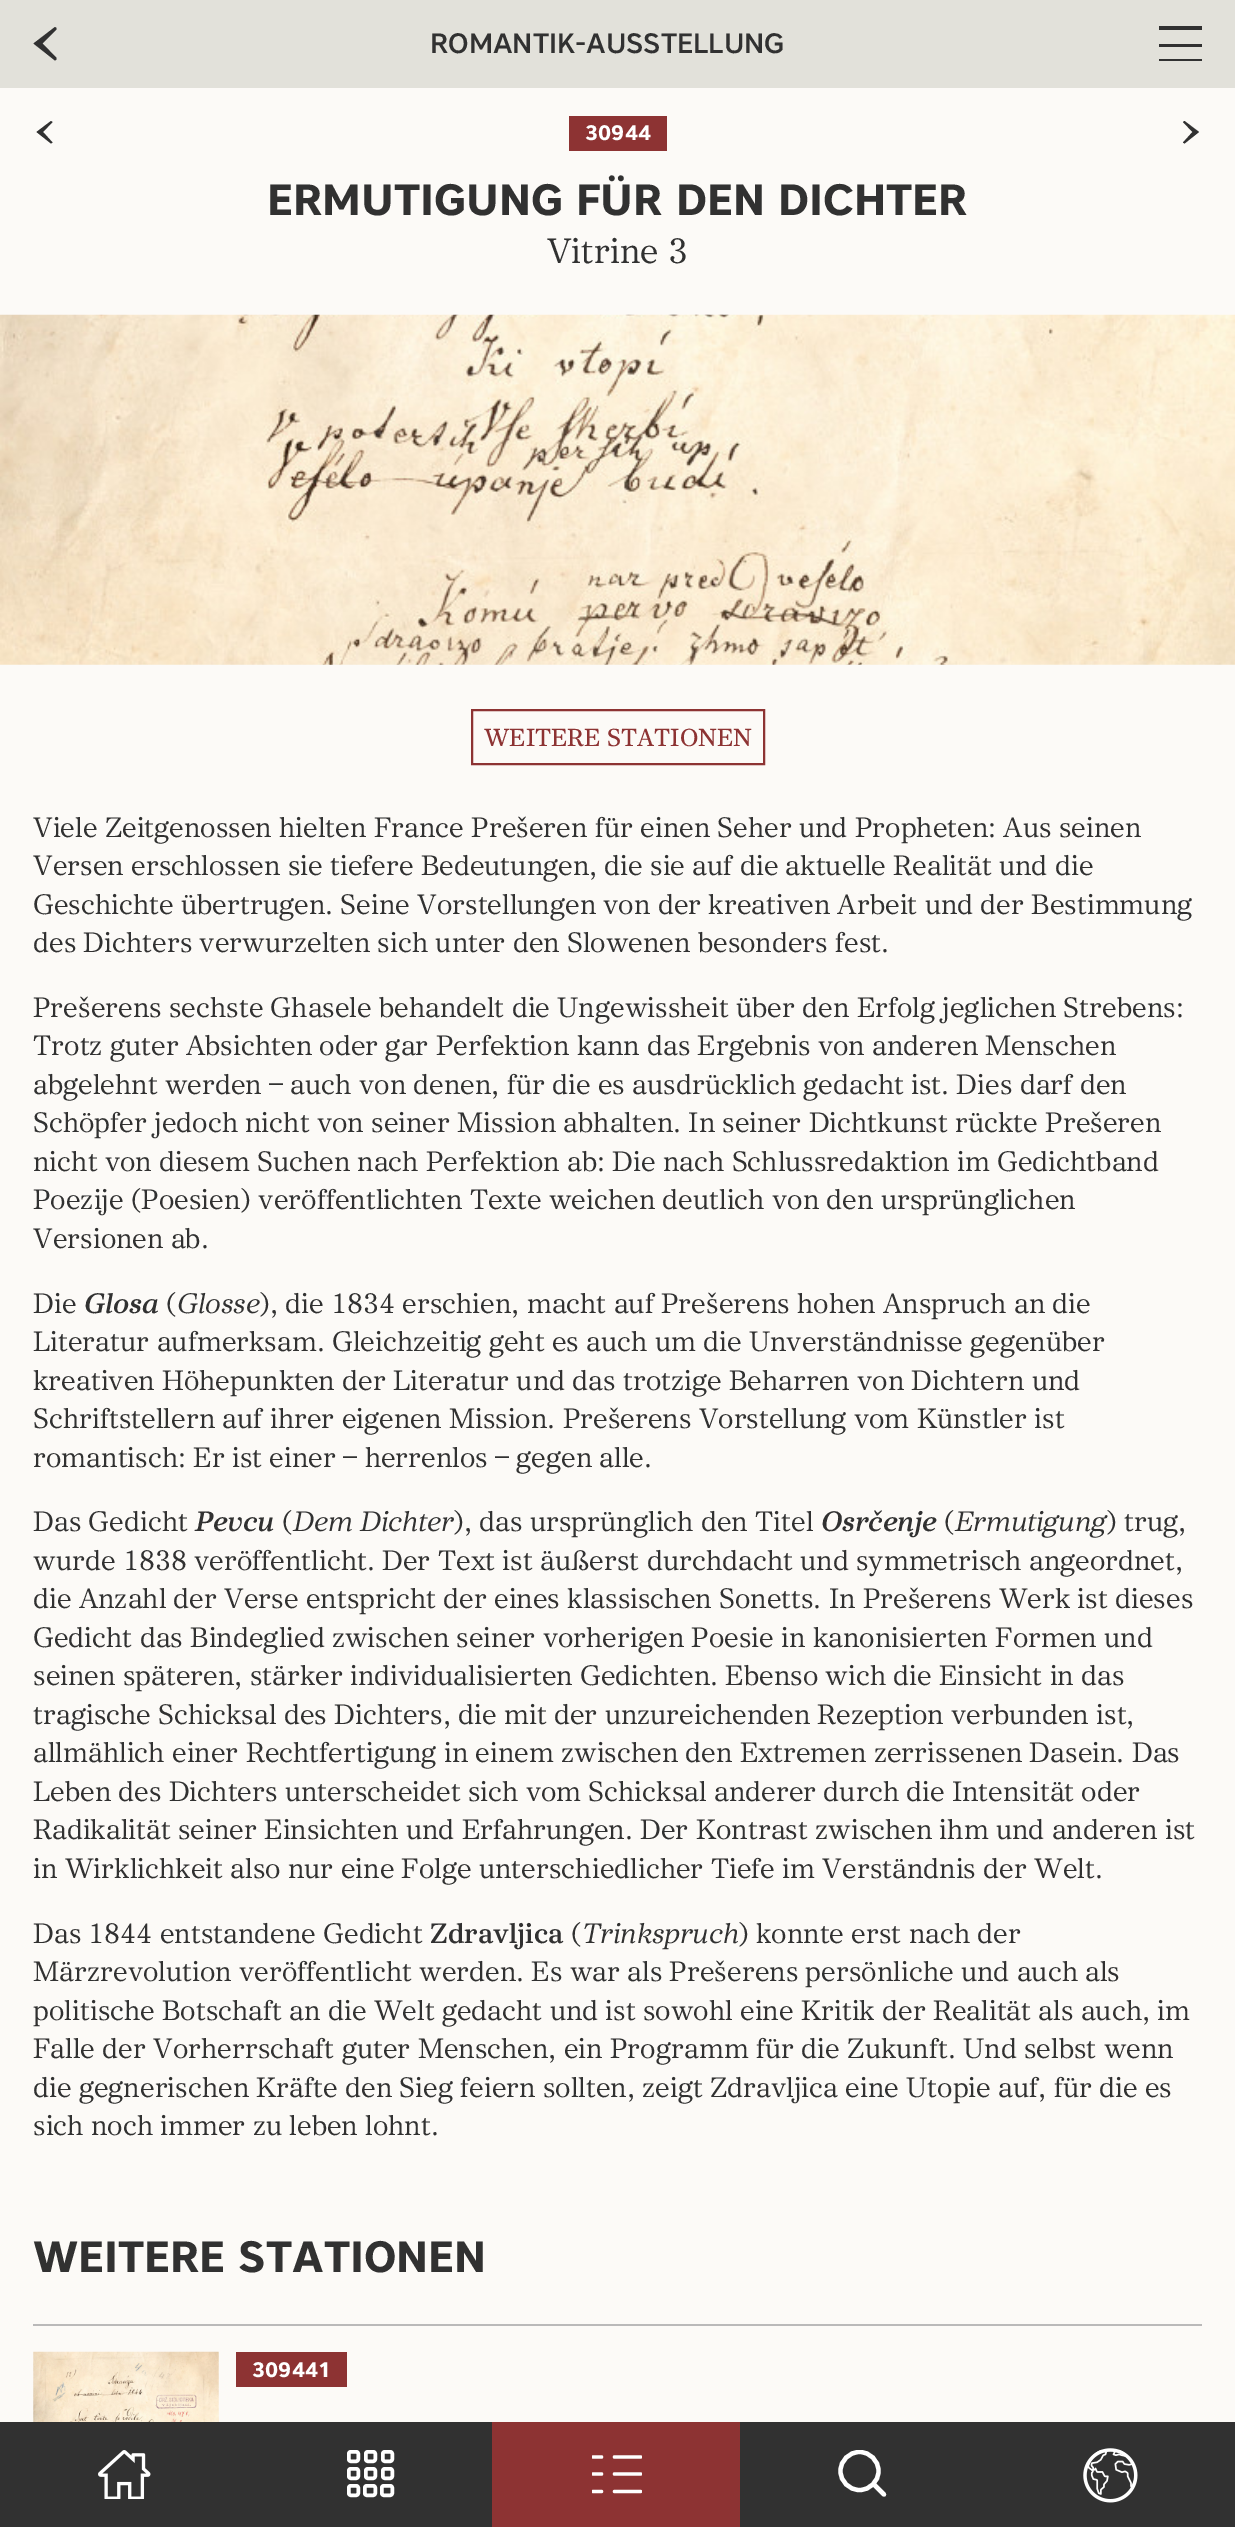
%!PS-Adobe-3.0
%%BoundingBox: 0 0 1235 2527
%%LanguageLevel: 3
%%Pages: 1
%%EndComments
%%BeginProlog
/setink { dup -16 bitshift 255 div exch dup -8 bitshift 255 and 255 div exch 255 and 255 div setrgbcolor } def
/usefont { [ exch dup neg 0 0 3 -1 roll 0 0 ] selectfont } def
/disc { newpath 0 360 arc closepath } def
/rrect { 5 dict begin { /r /h /w /y /x } { exch def } forall
  x r add y moveto x w add y 2 copy h add r arct x w add y h add x 1 index r arct
  x y h add x y r arct x y 2 copy exch w add exch r arct closepath end } def
/drawimage { 5 dict begin { /h /w /y /x /name } { exch def } forall
  gsave x y translate w h scale
  w h 8 [w 0 0 h 0 0] name (r) file false 3 colorimage grestore end } def
%%EndProlog
%%BeginSetup
<< /PageSize [1235 2527] >> setpagedevice
%%EndSetup
%%Page: 1 1
0 2527 translate 1 -1 scale
4 setmiterlimit
16#FCFAF7 setink
0 0 1235 2527 rectfill
16#E2E1DA setink
0 0 1235 88 rectfill
16#313131 setink
55 60.5 moveto 33.5 43.5 lineto 55 27 lineto 56.5 28 lineto 56.5 29.5 lineto 42.5 43.5 lineto 56.5 58 lineto 56.5 59.5 lineto closepath fill
/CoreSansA-Medium 28 usefont
430 53 moveto (ROMANTIK-AUSSTELLUNG) show
gsave
1159 26 43 35 rectclip
1159 26 moveto 1202 26 lineto 1202 30 lineto 1159 30 lineto closepath 1159 44 moveto 1202 44 lineto 1202 47 lineto 1159 47 lineto closepath 1159 59 moveto 1202 59 lineto 1202 63 lineto 1159 63 lineto closepath fill
grestore
51 121 moveto 52.5 122 lineto 43 132 lineto 52.5 142.5 lineto 51 143.5 lineto 36.5 132 lineto closepath fill
16#8D3333 setink
569 116 98 35 rectfill
/CoreSansA-Bold 21 usefont
16#FFFFFF setink
585 140 moveto (30944) show
/CoreSansA-Bold 43.75 usefont
16#313131 setink
267 215 moveto (ERMUTIGUNG FÜR DEN DICHTER) show
/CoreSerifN-Regular 35 usefont
547 263 moveto (Vitrine 3) show
1184.5 143.5 moveto 1183 142.5 lineto 1192.5 132 lineto 1183 122 lineto 1184.5 121 lineto 1199 132 lineto closepath fill
(img1.raw) 0 314 1235 351 drawimage
16#8D3333 setink
2 setlinewidth
472 710 292 54 rectstroke
/CoreSerifN-Medium 24.5 usefont
484 746 moveto (WEITERE STATIONEN) show
/CoreSerifN-Regular 28 usefont
16#313131 setink
[
    [(Viele Zeitgenossen hielten France Prešeren für einen Seher und Propheten: Aus seinen) 33 837]
    [(Versen erschlossen sie tiefere Bedeutungen, die sie auf die aktuelle Realität und die) 33 875]
    [(Geschichte übertrugen. Seine Vorstellungen von der kreativen Arbeit und der Bestimmung) 33 914]
    [(des Dichters verwurzelten sich unter den Slowenen besonders fest.) 33 952]
    [(Prešerens sechste Ghasele behandelt die Ungewissheit über den Erfolg jeglichen Strebens:) 33 1017]
    [(Trotz guter Absichten oder gar Perfektion kann das Ergebnis von anderen Menschen) 33 1055]
    [(abgelehnt werden – auch von denen, für die es ausdrücklich gedacht ist. Dies darf den) 33 1094]
    [(Schöpfer jedoch nicht von seiner Mission abhalten. In seiner Dichtkunst rückte Prešeren) 33 1132]
    [(nicht von diesem Suchen nach Perfektion ab: Die nach Schlussredaktion im Gedichtband) 33 1171]
    [(Poezije \(Poesien\) veröffentlichten Texte weichen deutlich von den ursprünglichen) 33 1209]
    [(Versionen ab.) 33 1248]
    [(Die) 33 1313]
] { aload pop moveto show } forall
/CoreSerifN-BoldItalic 28 usefont
84 1313 moveto (Glosa) show
/CoreSerifN-Regular 28 usefont
166 1313 moveto (\() show
/CoreSerifN-Italic 28 usefont
177 1313 moveto (Glosse) show
/CoreSerifN-Regular 28 usefont
[
    [(\), die 1834 erschien, macht auf Prešerens hohen Anspruch an die) 259 1313]
    [(Literatur aufmerksam. Gleichzeitig geht es auch um die Unverständnisse gegenüber) 33 1351]
    [(kreativen Höhepunkten der Literatur und das trotzige Beharren von Dichtern und) 33 1390]
    [(Schriftstellern auf ihrer eigenen Mission. Prešerens Vorstellung vom Künstler ist) 33 1428]
    [(romantisch: Er ist einer – herrenlos – gegen alle.) 33 1467]
    [(Das Gedicht) 33 1531]
] { aload pop moveto show } forall
/CoreSerifN-BoldItalic 28 usefont
195 1531 moveto (Pevcu) show
/CoreSerifN-Regular 28 usefont
282 1531 moveto (\() show
/CoreSerifN-Italic 28 usefont
293 1531 moveto (Dem Dichter) show
/CoreSerifN-Regular 28 usefont
453 1531 moveto (\), das ursprünglich den Titel) show
/CoreSerifN-BoldItalic 28 usefont
821 1531 moveto (Osrčenje) show
/CoreSerifN-Regular 28 usefont
944 1531 moveto (\() show
/CoreSerifN-Italic 28 usefont
955 1531 moveto (Ermutigung) show
/CoreSerifN-Regular 28 usefont
[
    [(\) trug,) 1106 1531]
    [(wurde 1838 veröffentlicht. Der Text ist äußerst durchdacht und symmetrisch angeordnet,) 33 1570]
    [(die Anzahl der Verse entspricht der eines klassischen Sonetts. In Prešerens Werk ist dieses) 33 1608]
    [(Gedicht das Bindeglied zwischen seiner vorherigen Poesie in kanonisierten Formen und) 33 1647]
    [(seinen späteren, stärker individualisierten Gedichten. Ebenso wich die Einsicht in das) 33 1685]
    [(tragische Schicksal des Dichters, die mit der unzureichenden Rezeption verbunden ist,) 33 1724]
    [(allmählich einer Rechtfertigung in einem zwischen den Extremen zerrissenen Dasein. Das) 33 1762]
    [(Leben des Dichters unterscheidet sich vom Schicksal anderer durch die Intensität oder) 33 1801]
    [(Radikalität seiner Einsichten und Erfahrungen. Der Kontrast zwischen ihm und anderen ist) 33 1839]
    [(in Wirklichkeit also nur eine Folge unterschiedlicher Tiefe im Verständnis der Welt.) 33 1878]
    [(Das 1844 entstandene Gedicht) 33 1943]
] { aload pop moveto show } forall
/CoreSerifN-Bold 28 usefont
430 1943 moveto (Zdravljica) show
/CoreSerifN-Regular 28 usefont
571 1943 moveto (\() show
/CoreSerifN-Italic 28 usefont
582 1943 moveto (Trinkspruch) show
/CoreSerifN-Regular 28 usefont
[
    [(\) konnte erst nach der) 738 1943]
    [(Märzrevolution veröffentlicht werden. Es war als Prešerens persönliche und auch als) 33 1981]
    [(politische Botschaft an die Welt gedacht und ist sowohl eine Kritik der Realität als auch, im) 33 2020]
    [(Falle der Vorherrschaft guter Menschen, ein Programm für die Zukunft. Und selbst wenn) 33 2058]
    [(die gegnerischen Kräfte den Sieg feiern sollten, zeigt Zdravljica eine Utopie auf, für die es) 33 2097]
    [(sich noch immer zu leben lohnt.) 33 2135]
] { aload pop moveto show } forall
/CoreSansA-Bold 43.75 usefont
33 2272 moveto (WEITERE STATIONEN) show
16#BAB9B9 setink
33 2324 1169 2 rectfill
(img2.raw) 33 2351 186 71 drawimage
16#8D3333 setink
236 2352 111 35 rectfill
/CoreSansA-Bold 21 usefont
16#FFFFFF setink
252 2377 moveto (309441) show
16#313131 setink
0 2422 1235 105 rectfill
(img3.raw) 98 2450 53 49 drawimage
16#FFFFFF setink
3.5 setlinewidth
348.75 2451.75 9.5 9.5 2.25 rrect stroke
365.75 2451.75 9.5 9.5 2.25 rrect stroke
348.75 2468.75 9.5 9.5 2.25 rrect stroke
365.75 2468.75 9.5 9.5 2.25 rrect stroke
382.75 2451.75 9.5 9.5 2.25 rrect stroke
382.75 2468.75 9.5 9.5 2.25 rrect stroke
364.75 2485.75 10.5 9.5 2.25 rrect stroke
348.75 2485.75 9.5 9.5 2.25 rrect stroke
381.75 2485.75 10.5 9.5 2.25 rrect stroke
16#8D3333 setink
492 2422 248 105 rectfill
gsave
592 2455 50 39 rectclip
16#FFFFFF setink
3.3 setlinewidth
1 setlinecap
1 setlinejoin
614.5 2457 moveto 640.5 2457 lineto 593 2457 moveto 601.5 2457 lineto 593 2474 moveto 601.5 2474 lineto 614.5 2474 moveto 640.5 2474 lineto 614.5 2491.5 moveto 640.5 2491.5 lineto 593 2491.5 moveto 601.5 2491.5 lineto stroke
grestore
gsave
838 2450 49 49 rectclip
16#FFFFFF setink
4.3 setlinewidth
859.5 2471 19 disc stroke
grestore
16#FFFFFF setink
4.3 setlinewidth
1 setlinecap
1 setlinejoin
874.5 2485 moveto 884 2494.5 lineto stroke
(img4.raw) 1083 2448 55 55 drawimage
showpage
%%EOF
